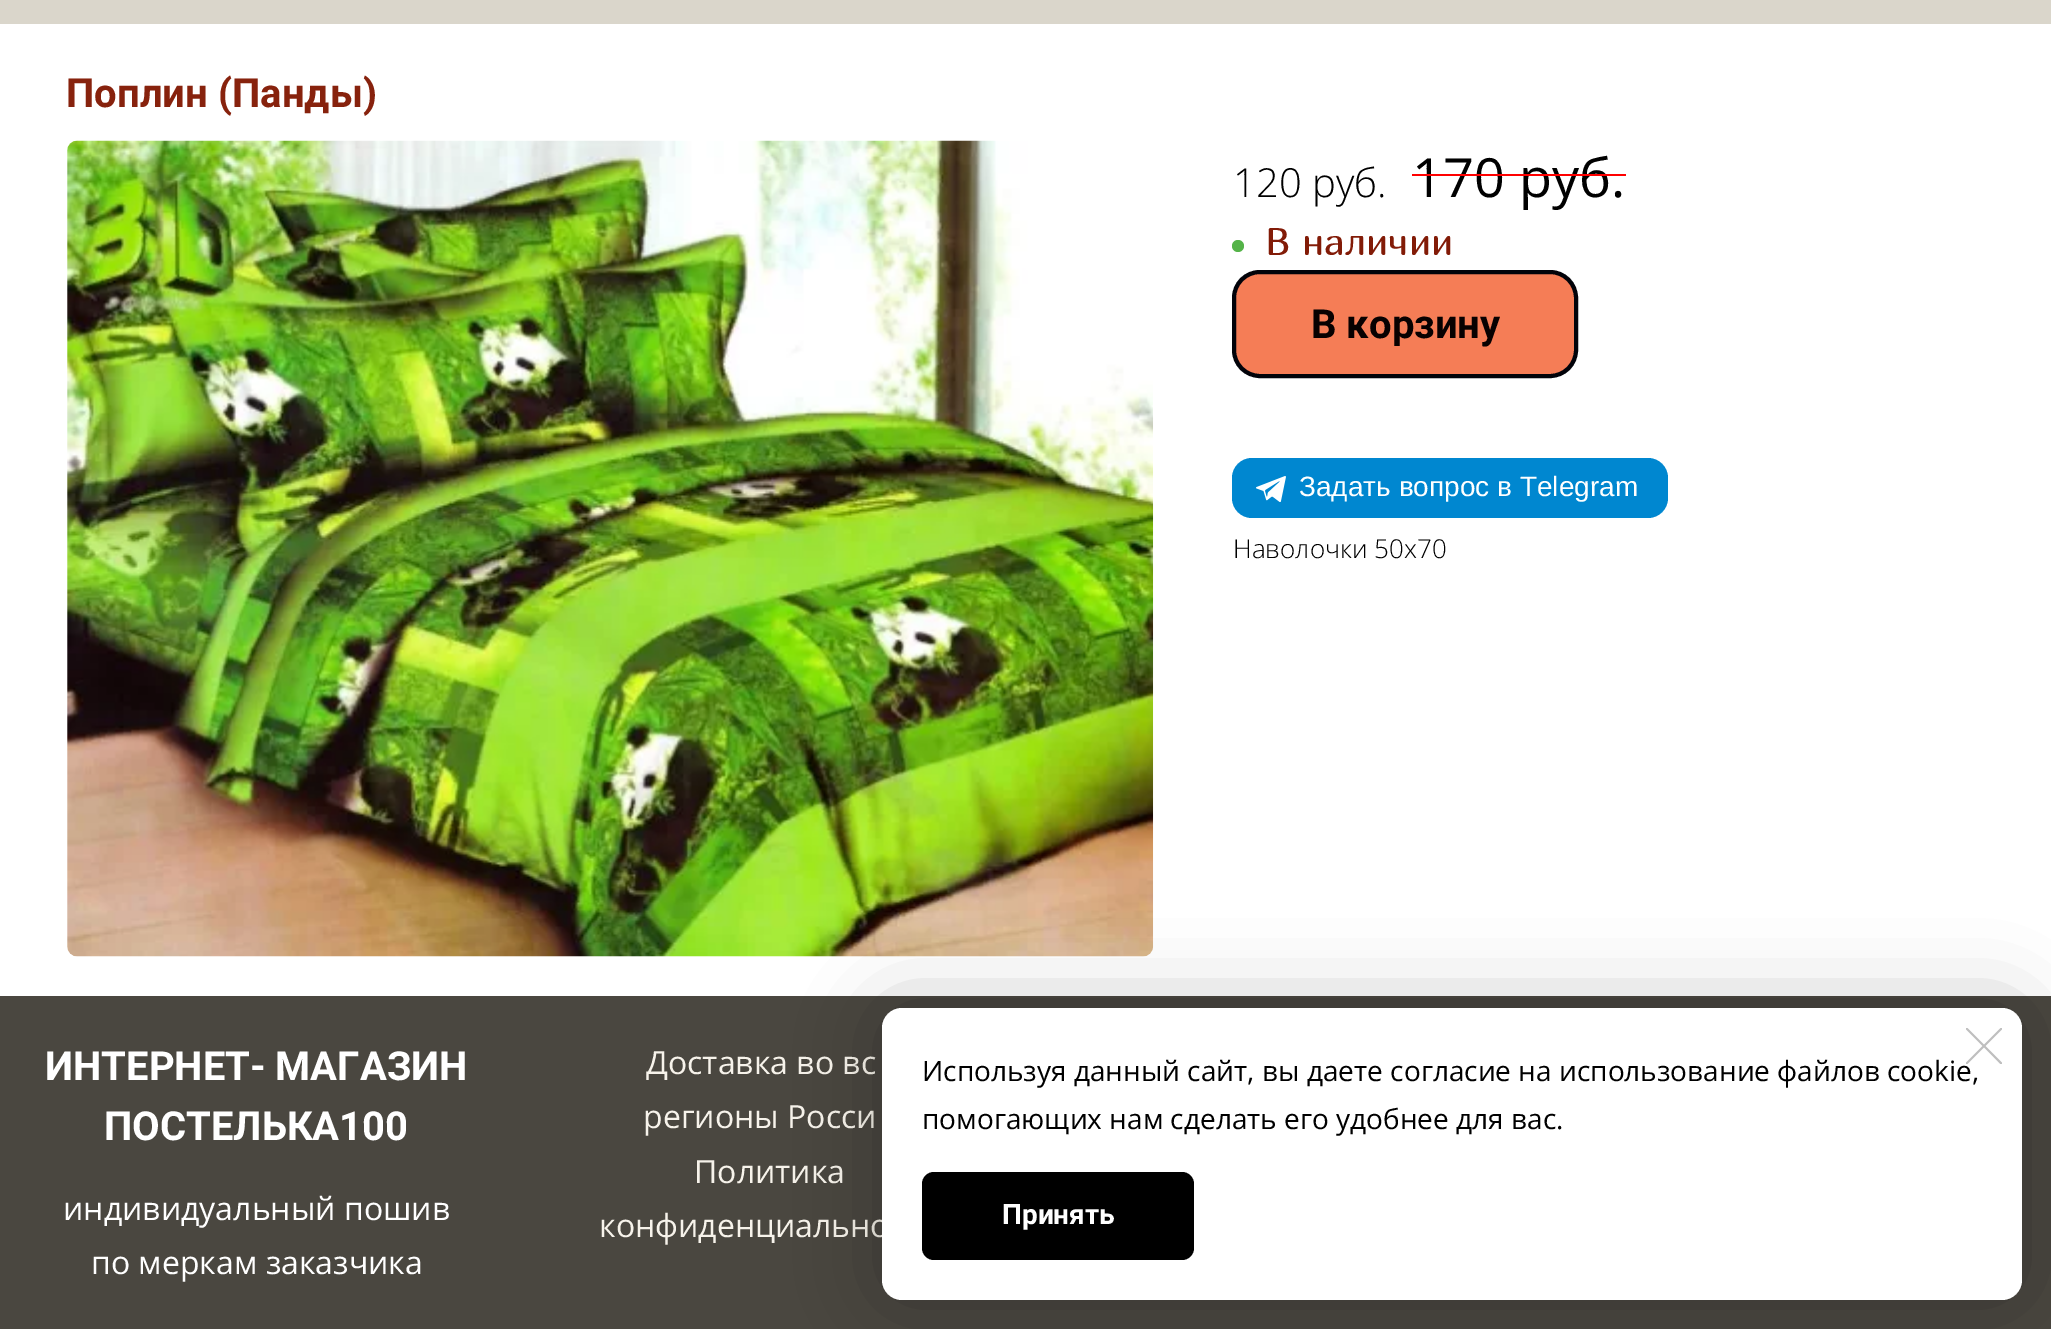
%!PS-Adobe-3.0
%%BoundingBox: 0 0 2051 1329
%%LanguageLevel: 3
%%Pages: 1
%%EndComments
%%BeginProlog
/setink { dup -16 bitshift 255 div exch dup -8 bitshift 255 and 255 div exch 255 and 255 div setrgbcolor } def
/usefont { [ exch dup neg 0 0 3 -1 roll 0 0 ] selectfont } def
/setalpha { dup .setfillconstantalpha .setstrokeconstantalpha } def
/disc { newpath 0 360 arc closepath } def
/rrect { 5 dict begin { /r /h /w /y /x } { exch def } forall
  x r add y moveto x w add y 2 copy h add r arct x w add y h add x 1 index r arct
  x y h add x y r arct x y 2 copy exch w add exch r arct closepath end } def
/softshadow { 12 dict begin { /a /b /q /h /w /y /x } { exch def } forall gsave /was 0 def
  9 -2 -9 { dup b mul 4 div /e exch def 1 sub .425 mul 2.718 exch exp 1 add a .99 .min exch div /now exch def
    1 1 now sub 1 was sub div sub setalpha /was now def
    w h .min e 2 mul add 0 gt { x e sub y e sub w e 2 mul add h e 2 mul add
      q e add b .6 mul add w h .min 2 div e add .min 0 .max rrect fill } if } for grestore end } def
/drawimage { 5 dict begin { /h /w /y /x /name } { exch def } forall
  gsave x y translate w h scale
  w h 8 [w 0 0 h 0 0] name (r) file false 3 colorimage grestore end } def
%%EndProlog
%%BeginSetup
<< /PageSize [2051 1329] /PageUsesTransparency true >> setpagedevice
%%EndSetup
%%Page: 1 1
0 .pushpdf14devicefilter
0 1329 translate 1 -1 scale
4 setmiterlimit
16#FFFFFF setink
0 0 2051 1329 rectfill
16#DAD6CB setink
0 0 2051 24 rectfill
/Roboto-Bold 40 usefont
16#87220D setink
66 107 moveto (Поплин \(Панды\)) show
(img1.raw) 67 140 1087 817 drawimage
/OpenSans-Light 40 usefont
16#000000 setink
1233 197 moveto (120 руб.) show
/OpenSans-Regular 54 usefont
1412 197 moveto (170 руб.) show
16#FF0000 setink
1412 174 214 2 rectfill
16#54B348 setink
1238 246 6 disc fill
/Marmelad-Regular 38 usefont
16#821B07 setink
1265 255 moveto (В наличии) show
16#F57D56 setink
1234 272 342 104 26 rrect gsave fill grestore
16#02030A setink
4 setlinewidth
stroke
/Roboto-Bold 40 usefont
16#080101 setink
1311 338 moveto (В корзину) show
16#0087D0 setink
1232 458 436 60 20 rrect fill
(img2.raw) 1256 476 30 26 drawimage
/LiberationSans-Regular 28 usefont
16#FFFFFF setink
1299 496 moveto (Задать вопрос в Telegram) show
/OpenSans-Light 26 usefont
16#000000 setink
1233 558 moveto (Наволочки 50х70) show
16#4A4740 setink
0 996 2051 333 rectfill
/Roboto-Bold 40 usefont
16#FFFFFF setink
45 1080 moveto (ИНТЕРНЕТ- МАГАЗИН) show
104 1140 moveto (ПОСТЕЛЬКА100) show
/OpenSans-Regular 32 usefont
63 1220 moveto (индивидуальный пошив) show
91 1274 moveto (по меркам заказчика) show
16#F7F3EB setink
[
    [(Доставка во вс) 646 1074]
    [(регионы Росси) 643 1128]
    [(Политика) 694 1183]
    [(конфиденциально) 599 1237]
] { aload pop moveto show } forall
16#000000 setink
882 1008 1140 292 20 40 0.25 softshadow
16#FFFFFF setink
882 1008 1140 292 20 rrect fill
/OpenSans-Regular 28 usefont
16#000000 setink
922 1081 moveto (Используя данный сайт, вы даете согласие на использование файлов cookie,) show
(img3.raw) 1966 1028 36 36 drawimage
922 1129 moveto (помогающих нам сделать его удобнее для вас.) show
922 1172 272 88 12 rrect fill
/Roboto-Bold 28 usefont
16#FFFFFF setink
1002 1224 moveto (Принять) show
.poppdf14devicefilter showpage
%%EOF
